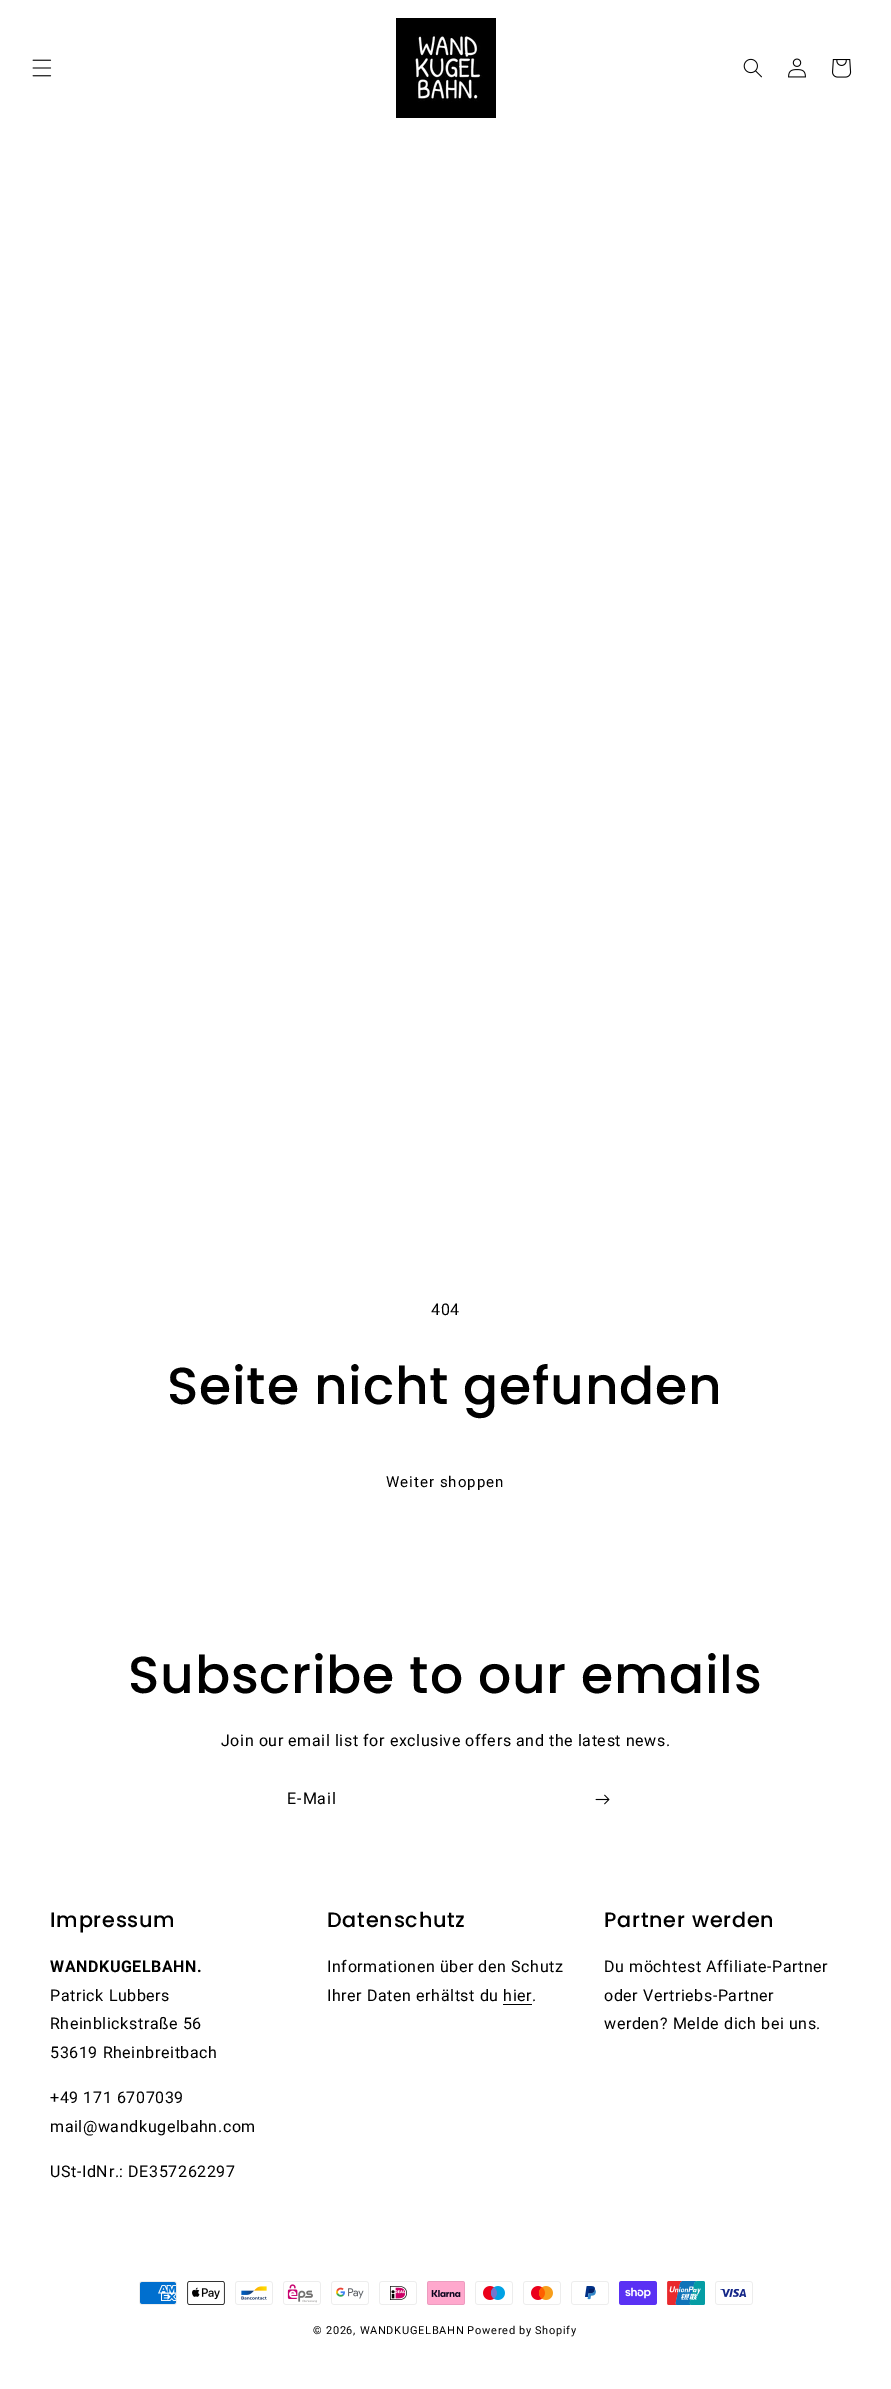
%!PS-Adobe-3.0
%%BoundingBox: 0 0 891 2389
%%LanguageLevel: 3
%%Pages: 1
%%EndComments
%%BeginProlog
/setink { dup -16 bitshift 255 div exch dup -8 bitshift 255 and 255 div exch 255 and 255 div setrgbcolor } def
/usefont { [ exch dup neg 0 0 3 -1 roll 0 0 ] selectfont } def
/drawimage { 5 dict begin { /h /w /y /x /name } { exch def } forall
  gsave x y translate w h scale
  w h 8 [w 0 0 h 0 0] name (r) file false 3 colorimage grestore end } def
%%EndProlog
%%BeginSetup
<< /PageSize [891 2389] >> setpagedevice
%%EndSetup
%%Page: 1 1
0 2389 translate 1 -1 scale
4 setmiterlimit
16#FFFFFF setink
0 0 891 2389 rectfill
(img1.raw) 32 59 20 18 drawimage
(img2.raw) 396 18 100 100 drawimage
(img3.raw) 743 58 19 20 drawimage
(img4.raw) 788 58 18 20 drawimage
(img5.raw) 832 59 20 19 drawimage
/Roboto-Regular 16 usefont
16#000000 setink
431 1315 moveto 0.6 0 (404) ashow
/Poppins-Medium 52 usefont
167 1404 moveto 0.75 0 (Seite nicht gefunden) ashow
/Roboto-Regular 15 usefont
386 1487 moveto 1 0 (Weiter shoppen) ashow
/Poppins-Medium 52 usefont
128 1693 moveto 0.75 0 (Subscribe to our emails) ashow
/Roboto-Regular 16 usefont
221 1746 moveto 0.6 0 (Join our email list for exclusive offers and the latest news.) ashow
287 1804 moveto 1 0 (E-Mail) ashow
(img6.raw) 595 1794 15 11 drawimage
/Poppins-Medium 20.75 usefont
50 1927 moveto 0.75 0 (Impressum) ashow
/Roboto-Bold 16 usefont
50 1972 moveto 0.6 0 (WANDKUGELBAHN.) ashow
/Roboto-Regular 16 usefont
50 2001 moveto 0.6 0 (Patrick Lubbers) ashow
50 2029 moveto 0.6 0 (Rheinblickstraße 56) ashow
50 2058 moveto 0.6 0 (53619 Rheinbreitbach) ashow
50 2103 moveto 0.6 0 (+49 171 6707039) ashow
50 2132 moveto 0.6 0 (mail@wandkugelbahn.com) ashow
50 2177 moveto 0.6 0 (USt-IdNr.: DE357262297) ashow
/Poppins-Medium 20.75 usefont
327 1927 moveto 0.75 0 (Datenschutz) ashow
/Roboto-Regular 16 usefont
327 1972 moveto 0.6 0 (Informationen über den Schutz) ashow
327 2001 moveto 0.6 0 (Ihrer Daten erhältst du hier.) ashow
503 2004 29 1 rectfill
/Poppins-Medium 20.75 usefont
604 1927 moveto 0.75 0 (Partner werden) ashow
/Roboto-Regular 16 usefont
604 1972 moveto 0.6 0 (Du möchtest Affiliate-Partner) ashow
604 2001 moveto 0.6 0 (oder Vertriebs-Partner) ashow
604 2029 moveto 0.6 0 (werden? Melde dich bei uns.) ashow
(img7.raw) 139 2281 38 24 drawimage
(img8.raw) 187 2281 38 24 drawimage
(img9.raw) 235 2281 38 24 drawimage
(img10.raw) 283 2281 38 24 drawimage
(img11.raw) 331 2281 38 24 drawimage
(img12.raw) 379 2281 38 24 drawimage
(img13.raw) 427 2281 38 24 drawimage
(img14.raw) 475 2281 38 24 drawimage
(img15.raw) 523 2281 38 24 drawimage
(img16.raw) 571 2281 38 24 drawimage
(img17.raw) 619 2281 38 24 drawimage
(img18.raw) 667 2281 38 24 drawimage
(img19.raw) 715 2281 38 24 drawimage
/Roboto-Regular 11 usefont
313 2334 moveto 0.7 0 (© 2026, WANDKUGELBAHN Powered by Shopify) ashow
showpage
%%EOF
